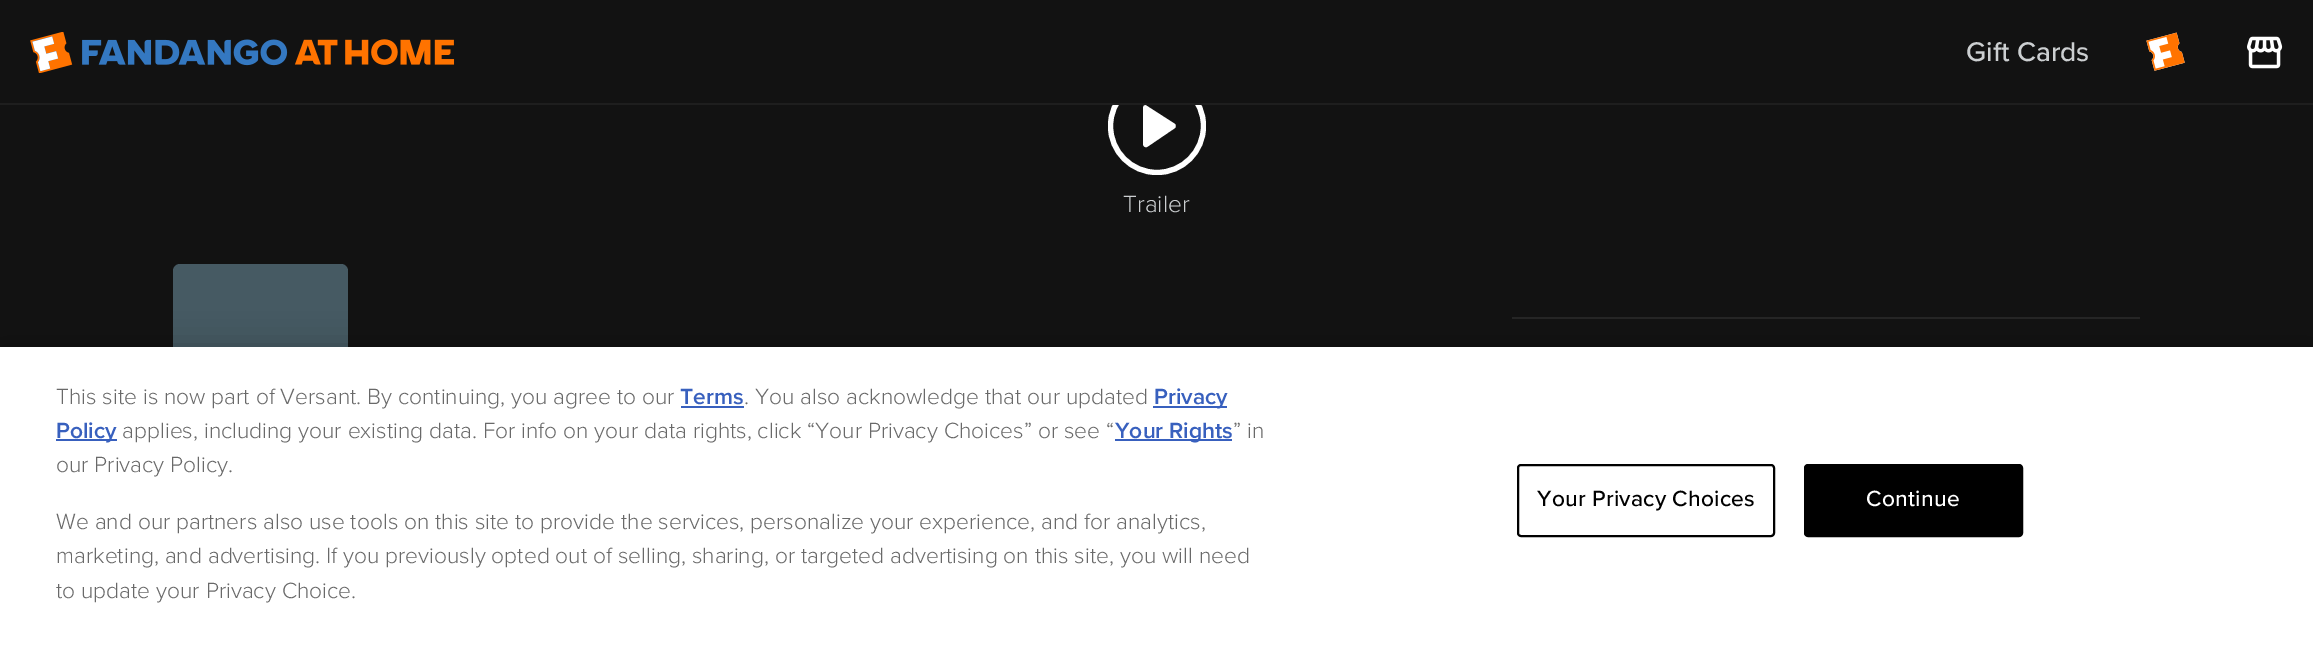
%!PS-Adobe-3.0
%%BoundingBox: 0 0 2313 649
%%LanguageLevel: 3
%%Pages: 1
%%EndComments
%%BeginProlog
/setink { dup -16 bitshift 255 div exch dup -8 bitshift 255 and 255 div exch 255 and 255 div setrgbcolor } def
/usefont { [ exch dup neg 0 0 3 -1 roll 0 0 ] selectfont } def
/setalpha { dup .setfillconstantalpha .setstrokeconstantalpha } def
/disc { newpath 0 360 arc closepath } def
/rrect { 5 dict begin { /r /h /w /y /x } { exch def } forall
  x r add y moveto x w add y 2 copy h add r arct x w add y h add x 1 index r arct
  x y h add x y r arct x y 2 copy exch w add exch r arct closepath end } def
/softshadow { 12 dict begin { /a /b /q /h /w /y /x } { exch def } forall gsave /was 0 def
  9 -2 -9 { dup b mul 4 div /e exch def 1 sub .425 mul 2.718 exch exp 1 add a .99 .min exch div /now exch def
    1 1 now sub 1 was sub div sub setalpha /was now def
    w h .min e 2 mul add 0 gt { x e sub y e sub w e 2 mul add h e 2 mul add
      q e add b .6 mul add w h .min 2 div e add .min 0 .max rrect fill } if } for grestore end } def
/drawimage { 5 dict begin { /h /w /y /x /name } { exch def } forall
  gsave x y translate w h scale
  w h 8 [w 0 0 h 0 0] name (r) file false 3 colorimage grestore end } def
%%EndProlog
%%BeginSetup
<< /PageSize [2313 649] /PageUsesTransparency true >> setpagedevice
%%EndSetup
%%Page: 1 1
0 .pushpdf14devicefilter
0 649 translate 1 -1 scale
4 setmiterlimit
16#121212 setink
0 0 2313 649 rectfill
gsave
1108 77 98 98 rectclip
16#FFFFFF setink
5.2 setlinewidth
1157 126 46.5 disc stroke
grestore
1113 77 88 26 rectfill
16#1E1E1E setink
0 103 2313 2 rectfill
(img1.raw) 30 32 425 41 drawimage
/ProximaNova-Medium 28 usefont
16#CCCFD1 setink
1966 61 moveto (Gift Cards) show
(img2.raw) 2146 32 39 39 drawimage
(img3.raw) 2247 36 36 33 drawimage
16#FFFFFF setink
1175 124 moveto 1147 106 lineto 1145 104 1143 106 1143 108 curveto 1143 144 lineto 1143 146 1145 148 1147 147 curveto 1175 128 lineto 1176 127 1176 125 1175 124 curveto closepath eofill
/ProximaNova-Light 24.5 usefont
16#CCCFD1 setink
1123 212 moveto (Trailer) show
16#465A63 setink
173 264 175 259 7 rrect fill
16#252525 setink
1512 317 628 2 rectfill
16#000000 setink
0 347 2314 302 0 16 0.2 softshadow
16#FFFFFF setink
0 347 2313 302 rectfill
/ProximaNova-Light 22.75 usefont
16#696969 setink
56 404 moveto (This site is now part of Versant. By continuing, you agree to our) show
/ProximaNova-SemiBold 22.75 usefont
16#3860BE setink
680 404 moveto (Terms) show
681 406 63 2 rectfill
/ProximaNova-Light 22.75 usefont
16#696969 setink
744 404 moveto (. You also acknowledge that our updated) show
16#3860BE setink
1153 406 74 2 rectfill
/ProximaNova-SemiBold 22.75 usefont
1154 404 moveto (Privacy) show
56 439 61 2 rectfill
56 438 moveto (Policy) show
/ProximaNova-Light 22.75 usefont
16#696969 setink
122 438 moveto (applies, including your existing data. For info on your data rights, click “Your Privacy Choices” or see “) show
16#3860BE setink
1115 439 117 2 rectfill
/ProximaNova-SemiBold 22.75 usefont
1115 438 moveto (Your Rights) show
/ProximaNova-Light 22.75 usefont
16#696969 setink
[
    [(” in) 1233 438]
    [(our Privacy Policy.) 56 472]
    [(We and our partners also use tools on this site to provide the services, personalize your experience, and for analytics,) 56 529]
    [(marketing, and advertising. If you previously opted out of selling, sharing, or targeted advertising on this site, you will need) 56 563]
    [(to update your Privacy Choice.) 56 598]
] { aload pop moveto show } forall
16#000000 setink
2 setlinewidth
1518 465 256 71 3 rrect stroke
/ProximaNova-Medium 22.75 usefont
1537 506 moveto 0.25 0 (Your Privacy Choices) ashow
1805 465 217 71 3 rrect gsave fill grestore
stroke
16#FFFFFF setink
1866 506 moveto 0.25 0 (Continue) ashow
.poppdf14devicefilter showpage
%%EOF
